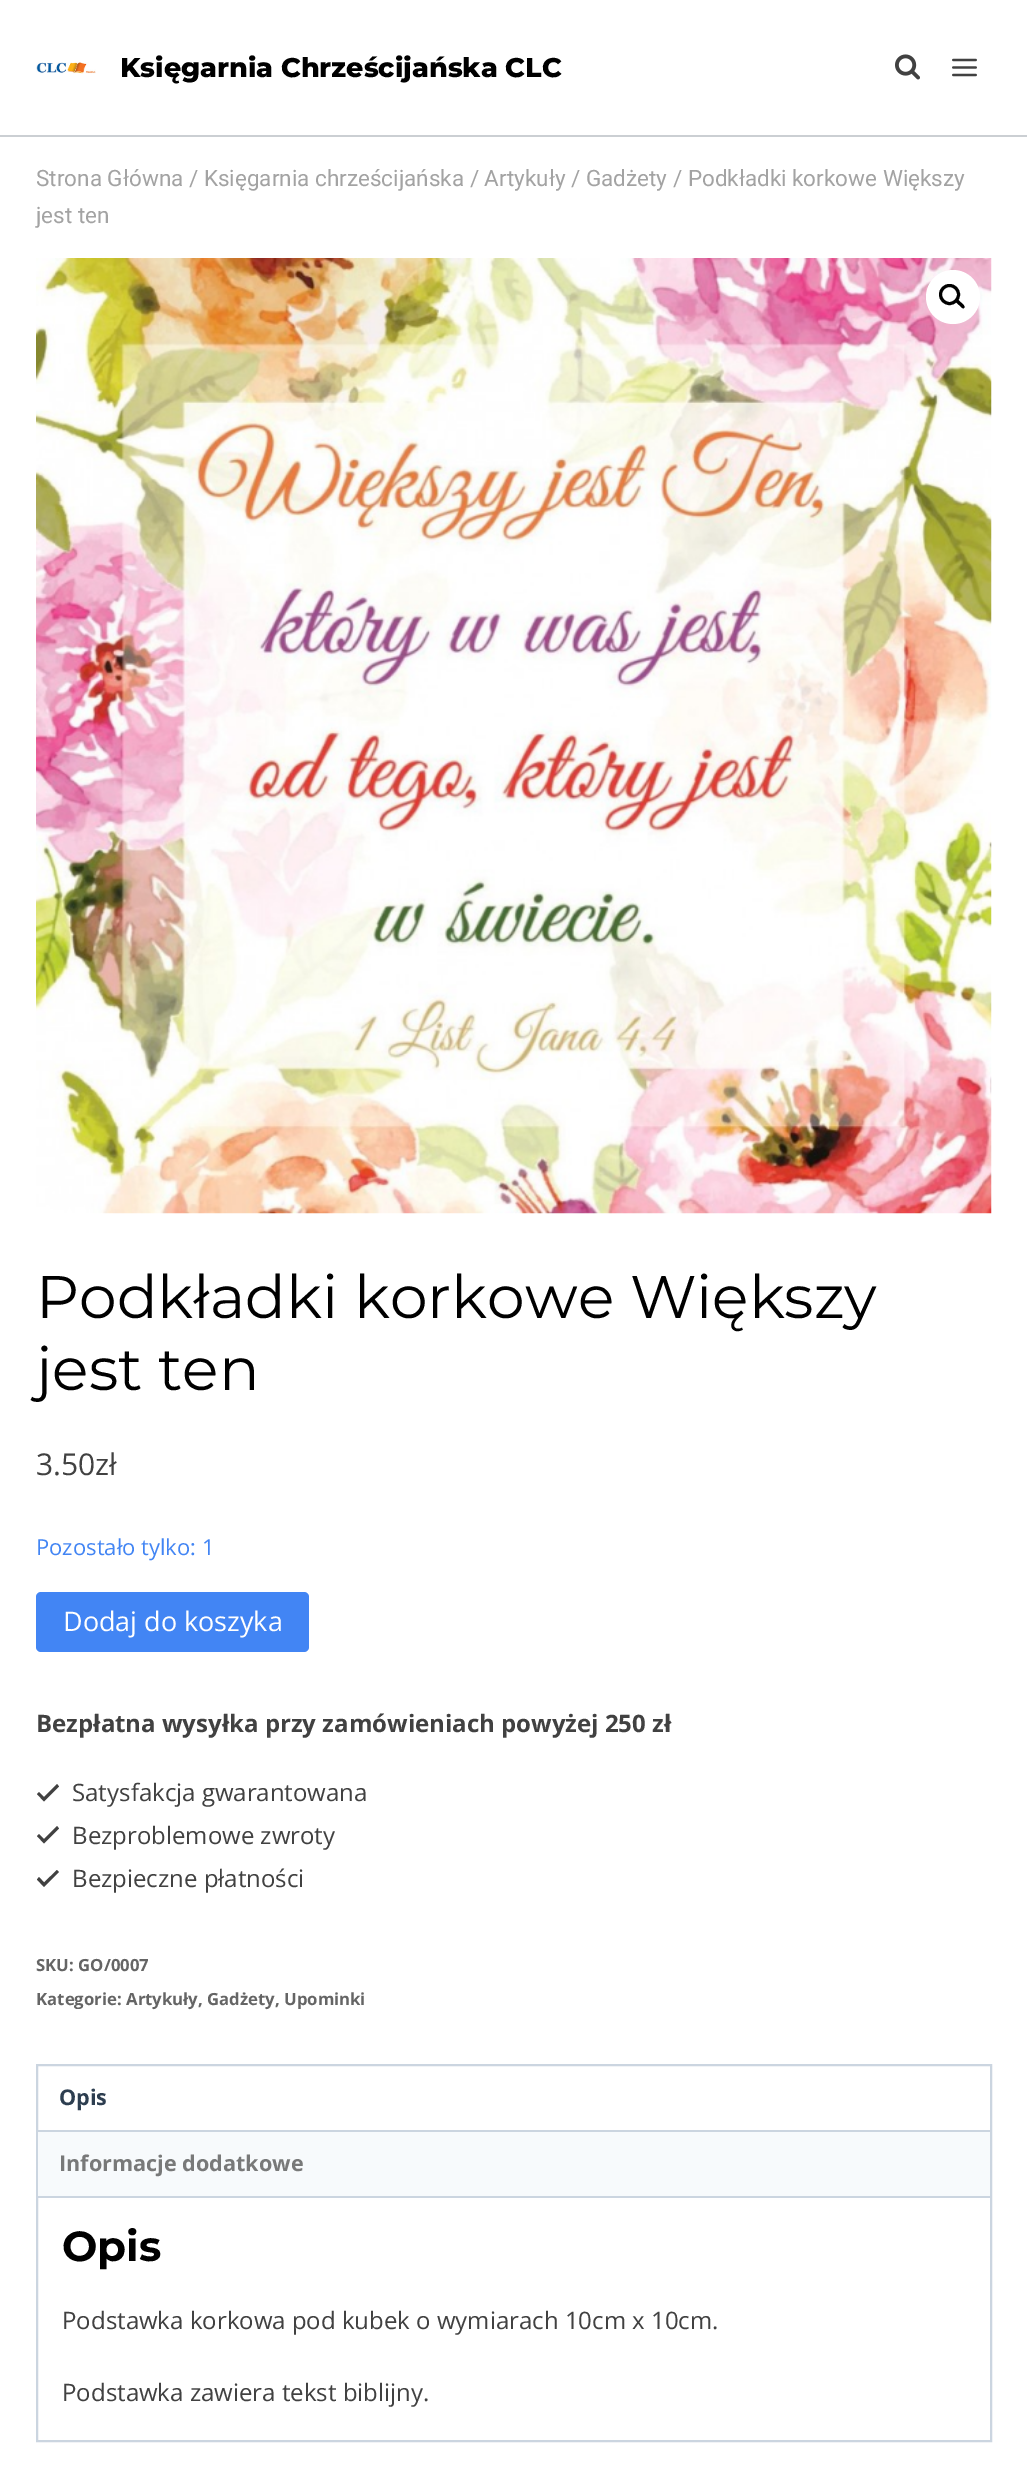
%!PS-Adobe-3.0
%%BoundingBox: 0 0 1027 2475
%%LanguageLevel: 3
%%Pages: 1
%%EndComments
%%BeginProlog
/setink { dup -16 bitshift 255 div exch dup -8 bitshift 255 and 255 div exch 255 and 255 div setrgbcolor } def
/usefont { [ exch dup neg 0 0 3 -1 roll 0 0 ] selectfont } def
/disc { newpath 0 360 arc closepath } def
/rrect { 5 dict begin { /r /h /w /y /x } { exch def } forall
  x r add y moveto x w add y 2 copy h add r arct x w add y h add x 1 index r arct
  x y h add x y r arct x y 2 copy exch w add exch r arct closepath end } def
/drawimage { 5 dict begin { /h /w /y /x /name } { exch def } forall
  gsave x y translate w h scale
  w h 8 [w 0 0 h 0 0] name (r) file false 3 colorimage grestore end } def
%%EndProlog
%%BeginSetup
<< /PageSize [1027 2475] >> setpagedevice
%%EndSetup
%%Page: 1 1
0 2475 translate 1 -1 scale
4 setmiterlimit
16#FFFFFF setink
0 0 1027 2475 rectfill
16#CBCFD3 setink
0 135 1027 2 rectfill
(img1.raw) 36 62 60 12 drawimage
/Montserrat-ExtraBold 27 usefont
16#000000 setink
120 77 moveto (Księgarnia Chrześcijańska CLC) show
(img2.raw) 895 54 25 26 drawimage
(img3.raw) 952 58 25 19 drawimage
/Roboto-Regular 22.5 usefont
16#A3A3A3 setink
36 186 moveto (Strona Główna / Księgarnia chrześcijańska / Artykuły / Gadżety / Podkładki korkowe Większy) show
36 223 moveto (jest ten) show
(img4.raw) 36 258 956 956 drawimage
16#FFFFFF setink
953 297 27 disc fill
16#000000 setink
3 setlinewidth
949.5 294.5 9 disc stroke
956 299.5 moveto 957.5 298 960 302 961 302.5 curveto 962 303.5 966 306.5 964 308 curveto 962.5 309.5 960 305.5 959 305 curveto 958 304 954 301 956 299.5 curveto closepath fill
/Montserrat-Regular 60 usefont
36 1318 moveto (Podkładki korkowe Większy) show
36 1390 moveto (jest ten) show
/OpenSans-Regular 30 usefont
16#414141 setink
36 1475 moveto (3.50zł) show
/OpenSans-Regular 22 usefont
16#4285F4 setink
36 1555 moveto (Pozostało tylko: 1) show
36 1592 273 60 5 rrect fill
/OpenSans-Regular 27 usefont
16#FFFFFF setink
63 1631 moveto (Dodaj do koszyka) show
/OpenSans-Bold 24 usefont
16#414141 setink
36 1732 moveto (Bezpłatna wysyłka przy zamówieniach powyżej 250 zł) show
57 1784 moveto 44 1797 lineto 39 1792 lineto 37 1794 lineto 44 1801.5 lineto 59 1786.5 lineto closepath 57 1826 moveto 44 1839 lineto 39 1834 lineto 37 1836 lineto 44 1843.5 lineto 59 1828.5 lineto closepath fill
/OpenSans-Regular 24 usefont
72 1801 moveto (Satysfakcja gwarantowana) show
72 1844 moveto (Bezproblemowe zwroty) show
57 1870 moveto 44 1882.5 lineto 39 1877 lineto 37 1879.5 lineto 44 1887 lineto 59 1872 lineto closepath fill
72 1887 moveto (Bezpieczne płatności) show
/OpenSans-Bold 16.75 usefont
16#656565 setink
36 1971 moveto (SKU: GO/0007) show
36 2005 moveto (Kategorie: Artykuły, Gadżety, Upominki) show
16#CBD5E0 setink
2 setlinewidth
37 2065 954 376 rectstroke
38 2130 952 2 rectfill
/OpenSans-Bold 21.6 usefont
16#2D3E50 setink
59 2105 moveto (Opis) show
16#F7FAFC setink
38 2132 952 64 rectfill
16#CBD5E0 setink
38 2196 952 2 rectfill
16#787979 setink
59 2171 moveto (Informacje dodatkowe) show
/Montserrat-Bold 42 usefont
16#000000 setink
62 2261 moveto (Opis) show
/OpenSans-Regular 24 usefont
16#414141 setink
62 2329 moveto (Podstawka korkowa pod kubek o wymiarach 10cm x 10cm.) show
62 2401 moveto (Podstawka zawiera tekst biblijny.) show
showpage
%%EOF
